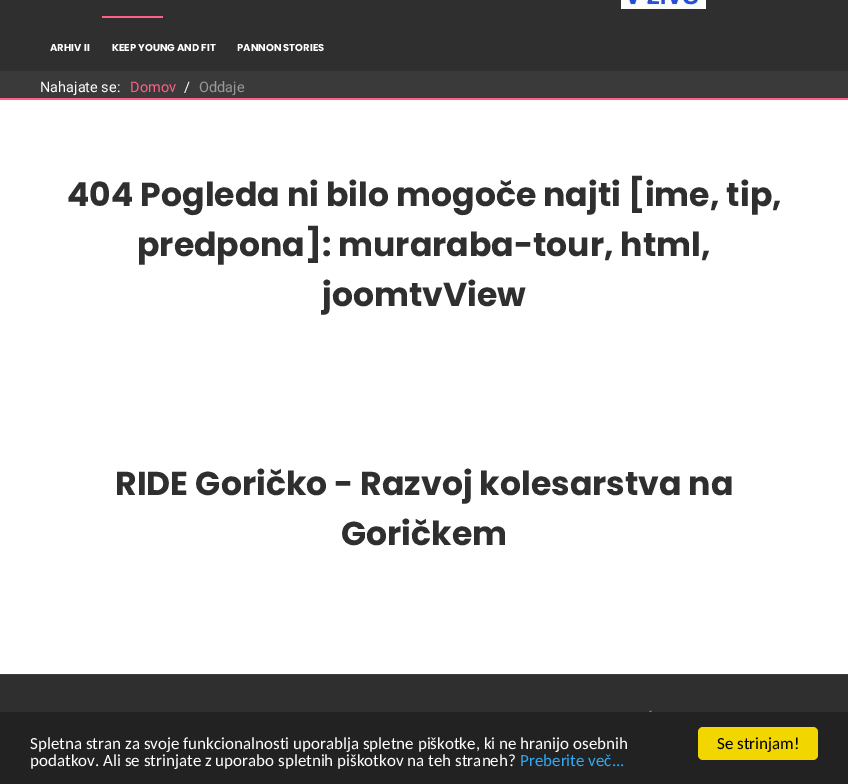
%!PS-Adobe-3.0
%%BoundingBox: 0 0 848 784
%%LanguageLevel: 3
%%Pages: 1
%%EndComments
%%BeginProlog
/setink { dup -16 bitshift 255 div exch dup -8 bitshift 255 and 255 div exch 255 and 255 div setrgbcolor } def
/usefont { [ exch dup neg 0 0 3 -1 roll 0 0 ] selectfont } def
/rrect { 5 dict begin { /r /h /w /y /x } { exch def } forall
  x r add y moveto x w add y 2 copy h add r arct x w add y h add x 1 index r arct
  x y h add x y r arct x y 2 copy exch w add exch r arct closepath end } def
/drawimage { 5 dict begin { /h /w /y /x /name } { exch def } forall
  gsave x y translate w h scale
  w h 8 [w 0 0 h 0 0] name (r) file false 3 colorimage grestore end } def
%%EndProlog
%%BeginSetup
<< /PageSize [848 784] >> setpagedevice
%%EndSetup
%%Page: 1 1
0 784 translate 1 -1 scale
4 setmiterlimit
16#FFFFFF setink
0 0 848 784 rectfill
16#2F2F2F setink
0 0 848 71 rectfill
(img1.raw) 621 0 85 9 drawimage
16#FF6186 setink
102 16 61 2 rectfill
/Poppins-Bold 10 usefont
16#FFFFFF setink
[
    [(ARHIV II) 50 51]
    [(KEEP YOUNG AND FIT) 112 51]
    [(PANNON STORIES) 237 51]
] { aload pop moveto show } forall
16#3A3A3A setink
0 71 848 27 rectfill
16#FF6186 setink
0 98 848 2 rectfill
/Roboto-Regular 14.5 usefont
16#FFFFFF setink
40 92 moveto (Nahajate se:) show
16#FF6186 setink
130 92 moveto (Domov) show
16#FFFFFF setink
184 92 moveto (/) show
16#999999 setink
199 92 moveto (Oddaje) show
/Poppins-Bold 33.1 usefont
16#2F2F2F setink
[
    [(404 Pogleda ni bilo mogoče najti [ime, tip,) 67 206]
    [(predpona]: muraraba-tour, html,) 137 256]
    [(joomtvView) 322 306]
    [(RIDE Goričko - Razvoj kolesarstva na) 115 495]
    [(Goričkem) 341 545]
] { aload pop moveto show } forall
0 675 848 37 rectfill
16#3C3C3C setink
0 674 848 1 rectfill
(img2.raw) 648 710 4 2 drawimage
16#222222 setink
0 712 848 72 rectfill
/Carlito-Regular 17 usefont
16#FFFFFF setink
30 749 moveto (Spletna stran za svoje funkcionalnosti uporablja spletne piškotke, ki ne hranijo osebnih) show
30 766 moveto (podatkov. Ali se strinjate z uporabo spletnih piškotkov na teh straneh?) show
16#31A8F0 setink
520 766 moveto (Preberite več...) show
16#F1D600 setink
698 727 120 33 5 rrect fill
16#000000 setink
717 749 moveto (Se strinjam!) show
showpage
%%EOF
